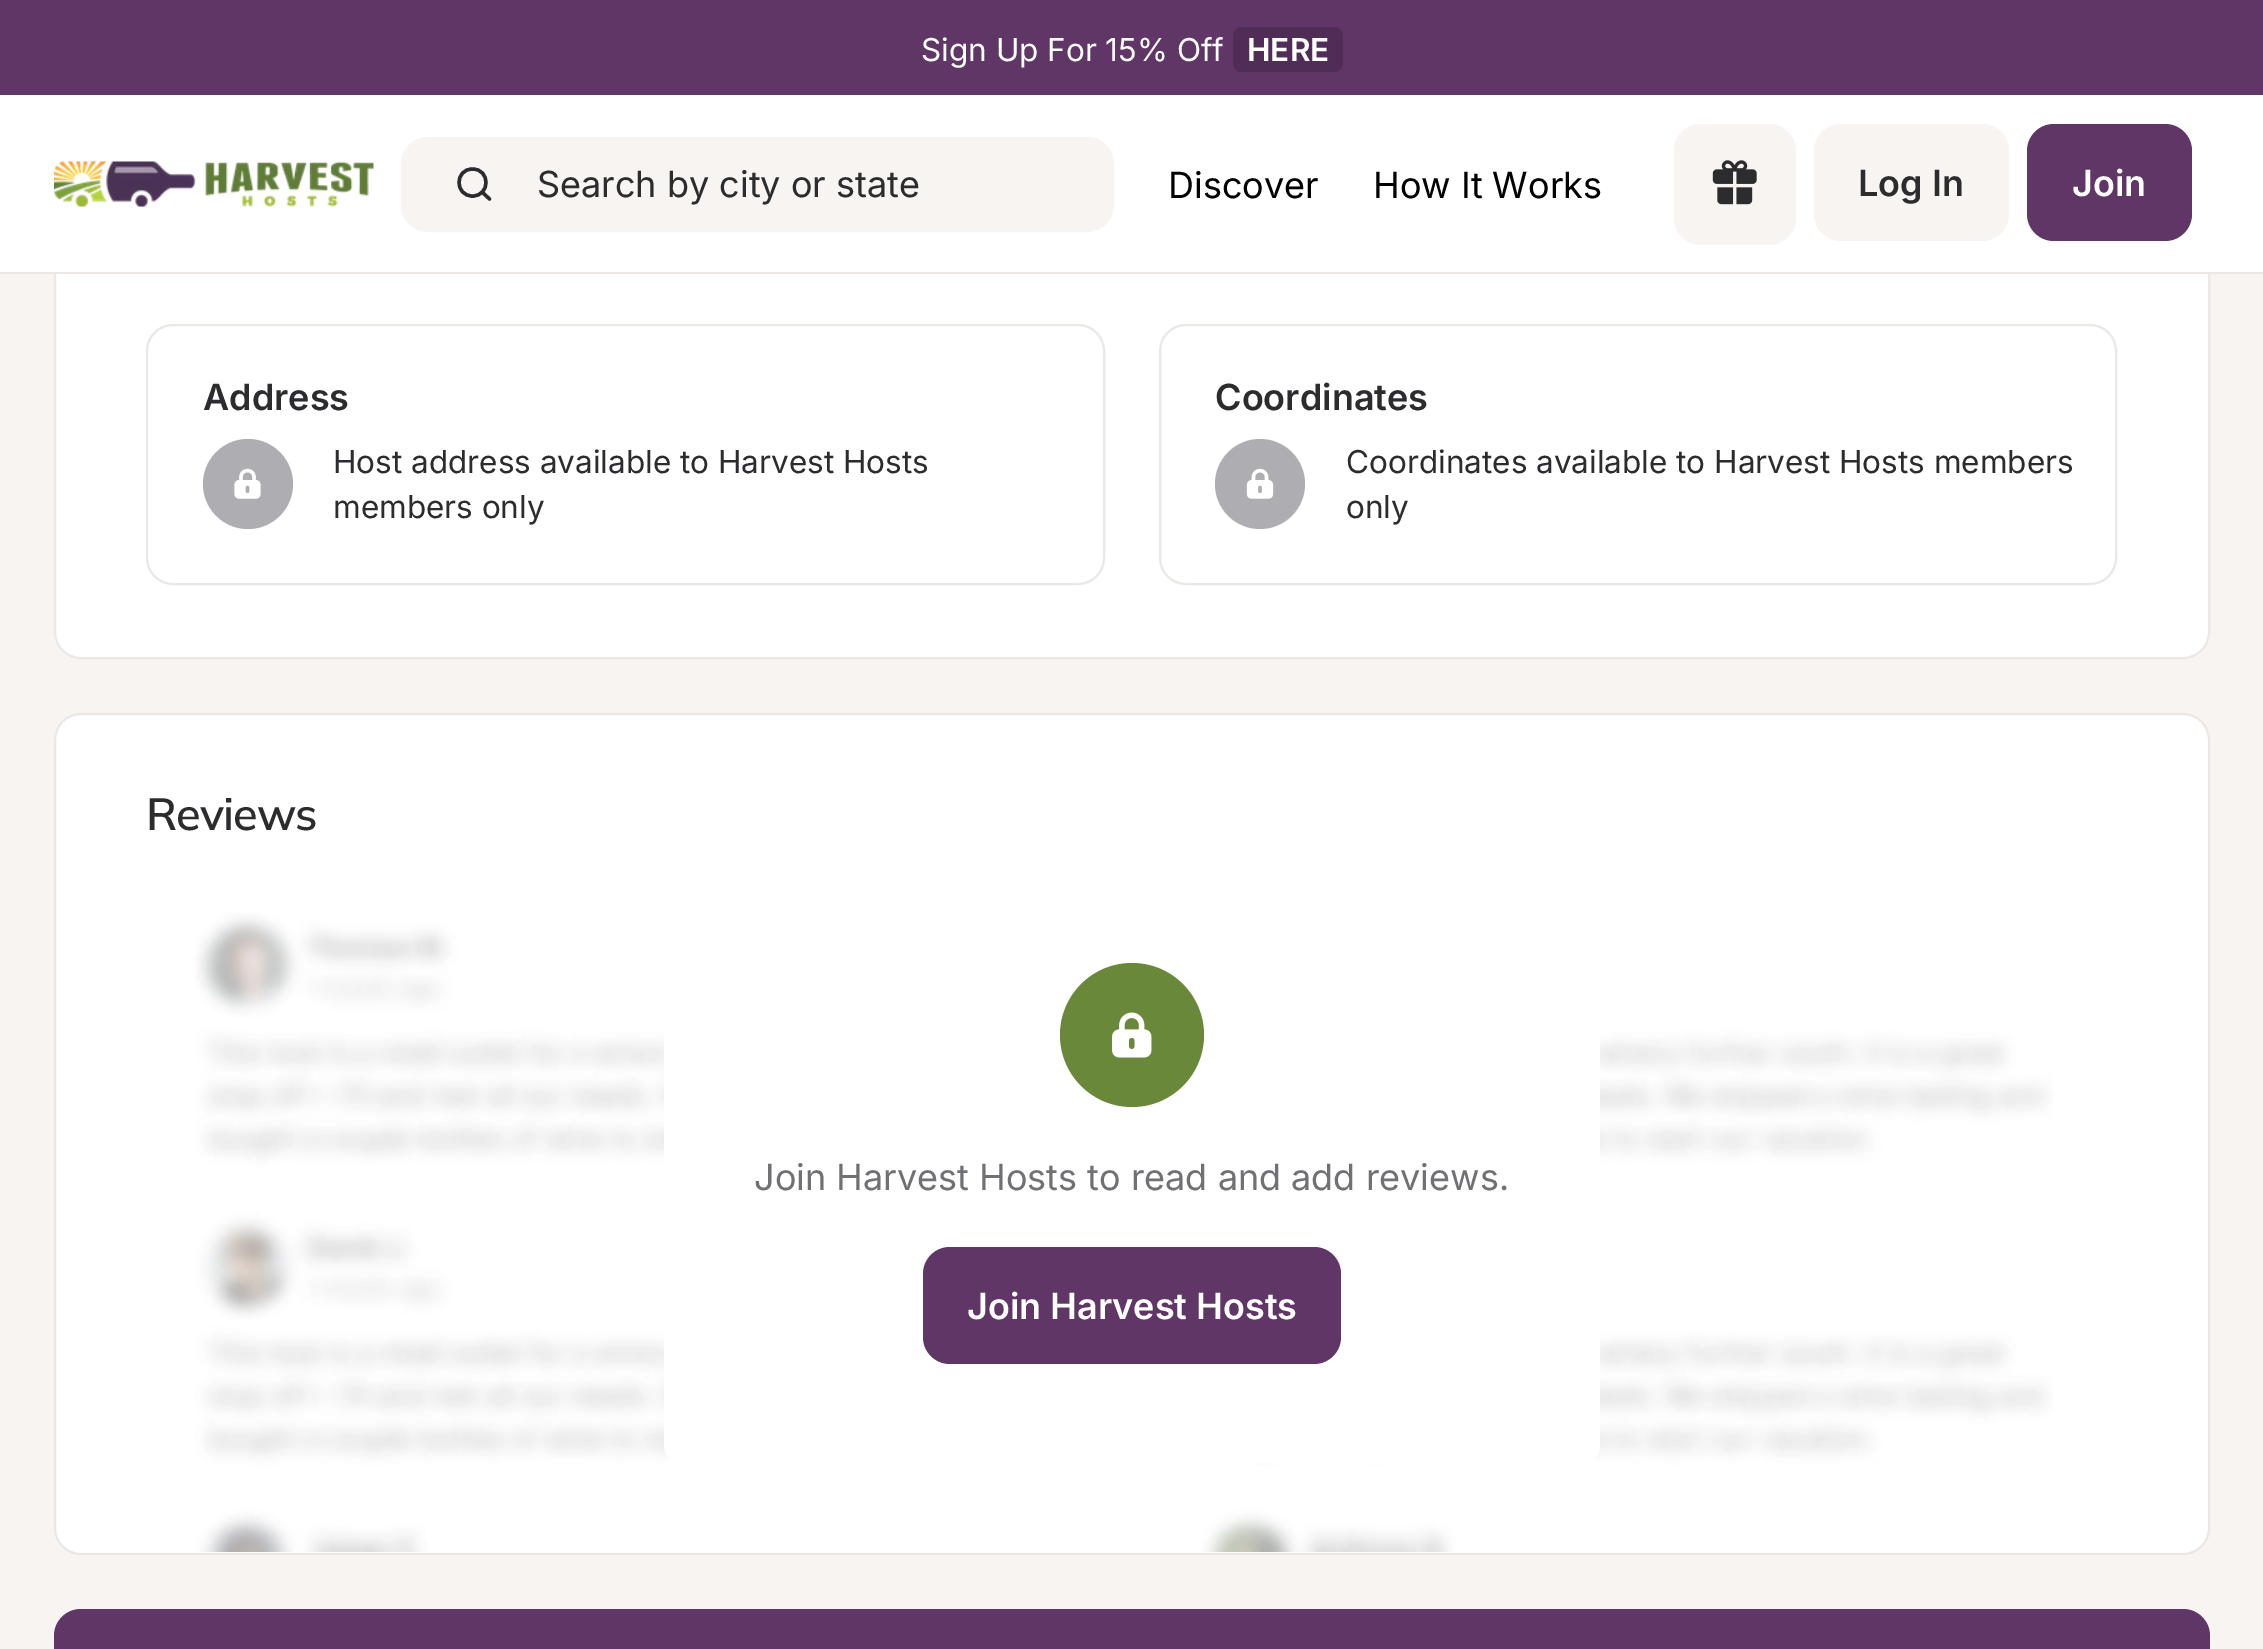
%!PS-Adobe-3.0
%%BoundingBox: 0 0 2263 1649
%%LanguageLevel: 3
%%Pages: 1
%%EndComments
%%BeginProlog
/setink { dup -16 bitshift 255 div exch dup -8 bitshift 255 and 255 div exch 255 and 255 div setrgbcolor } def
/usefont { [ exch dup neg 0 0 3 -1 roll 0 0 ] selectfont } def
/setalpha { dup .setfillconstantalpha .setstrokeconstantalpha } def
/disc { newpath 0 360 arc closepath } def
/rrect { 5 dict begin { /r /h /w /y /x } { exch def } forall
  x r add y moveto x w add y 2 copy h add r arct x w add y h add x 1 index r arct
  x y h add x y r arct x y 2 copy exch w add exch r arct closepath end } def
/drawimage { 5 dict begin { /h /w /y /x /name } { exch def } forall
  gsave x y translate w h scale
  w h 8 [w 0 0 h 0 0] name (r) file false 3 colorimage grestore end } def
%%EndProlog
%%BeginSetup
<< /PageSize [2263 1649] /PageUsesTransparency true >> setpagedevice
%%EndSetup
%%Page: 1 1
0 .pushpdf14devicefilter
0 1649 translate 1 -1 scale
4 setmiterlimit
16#F7F4F2 setink
0 0 2263 1649 rectfill
16#FFFFFF setink
54 -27 2156 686 27 rrect fill
0.1 setalpha
16#401C00 setink
2 setlinewidth
55 -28 2154 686 26 rrect stroke
1 setalpha
16#5F3666 setink
0 0 2263 95 rectfill
/Inter-Regular 31.5 usefont
16#FFFFFF setink
921 61 moveto (Sign Up For 15% Off) show
16#502D56 setink
1233 27 110 45 9 rrect fill
/Inter-SemiBold 31.5 usefont
16#FFFFFF setink
1247 61 moveto (HERE) show
0 95 2263 177 rectfill
16#EBE7E4 setink
0 272 2263 2 rectfill
(img1.raw) 54 161 320 46 drawimage
16#F7F4F2 setink
402 138 711 93 26 rrect gsave fill grestore
stroke
16#2C2C2E setink
3.4 setlinewidth
1 setlinecap
1 setlinejoin
472.5 196 moveto 490.5 196 490.5 169 472.5 169 curveto 454.5 169 454.5 196 472.5 196 curveto closepath 489.5 199 moveto 482 192 lineto stroke
/Inter-Regular 36 usefont
537 197 moveto (Search by city or state) show
16#000000 setink
1168 198 moveto (Discover) show
1373 198 moveto (How It Works) show
16#F7F4F2 setink
1674 124 122 121 27 rrect fill
(img2.raw) 1712 160 45 45 drawimage
1814 124 195 117 27 rrect fill
/Inter-SemiBold 36 usefont
16#2C2C2E setink
1858 196 moveto (Log In) show
16#5F3666 setink
2027 124 165 117 27 rrect fill
16#FFFFFF setink
2072 196 moveto (Join) show
16#EBE7E4 setink
2 setlinewidth
0 setlinecap
0 setlinejoin
147 325 957 259 26 rrect stroke
16#2C2C2E setink
203 410 moveto (Address) show
16#AEAEB2 setink
248 484 45 disc fill
(img3.raw) 234 468 27 31 drawimage
/Inter-Regular 31.5 usefont
16#2C2C2E setink
333 473 moveto (Host address available to Harvest Hosts) show
333 518 moveto (members only) show
16#EBE7E4 setink
1160 325 956 259 26 rrect stroke
/Inter-SemiBold 36 usefont
16#2C2C2E setink
1215 410 moveto (Coordinates) show
16#AEAEB2 setink
1260 484 45 disc fill
(img4.raw) 1246 468 28 31 drawimage
/Inter-Regular 31.5 usefont
16#2C2C2E setink
1346 473 moveto (Coordinates available to Harvest Hosts members) show
1346 518 moveto (only) show
16#FFFFFF setink
55 714 2154 840 26 rrect gsave fill grestore
16#EBE7E4 setink
stroke
/Mulish-SemiBold 45 usefont
16#2C2C2E setink
146 830 moveto -1 0 (Reviews) ashow
(img5.raw) 195 912 1858 640 drawimage
16#FFFFFF setink
664 909 936 554 18 rrect fill
16#698839 setink
1132 1035 72 disc fill
(img6.raw) 1112 1012 40 46 drawimage
/Inter-Regular 36 usefont
16#717175 setink
754 1190 moveto (Join Harvest Hosts to read and add reviews.) show
16#5F3666 setink
923 1247 418 117 27 rrect fill
/Inter-SemiBold 36 usefont
16#FFFFFF setink
967 1319 moveto (Join Harvest Hosts) show
16#5F3666 setink
54 1609 2156 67 27 rrect fill
.poppdf14devicefilter showpage
%%EOF
